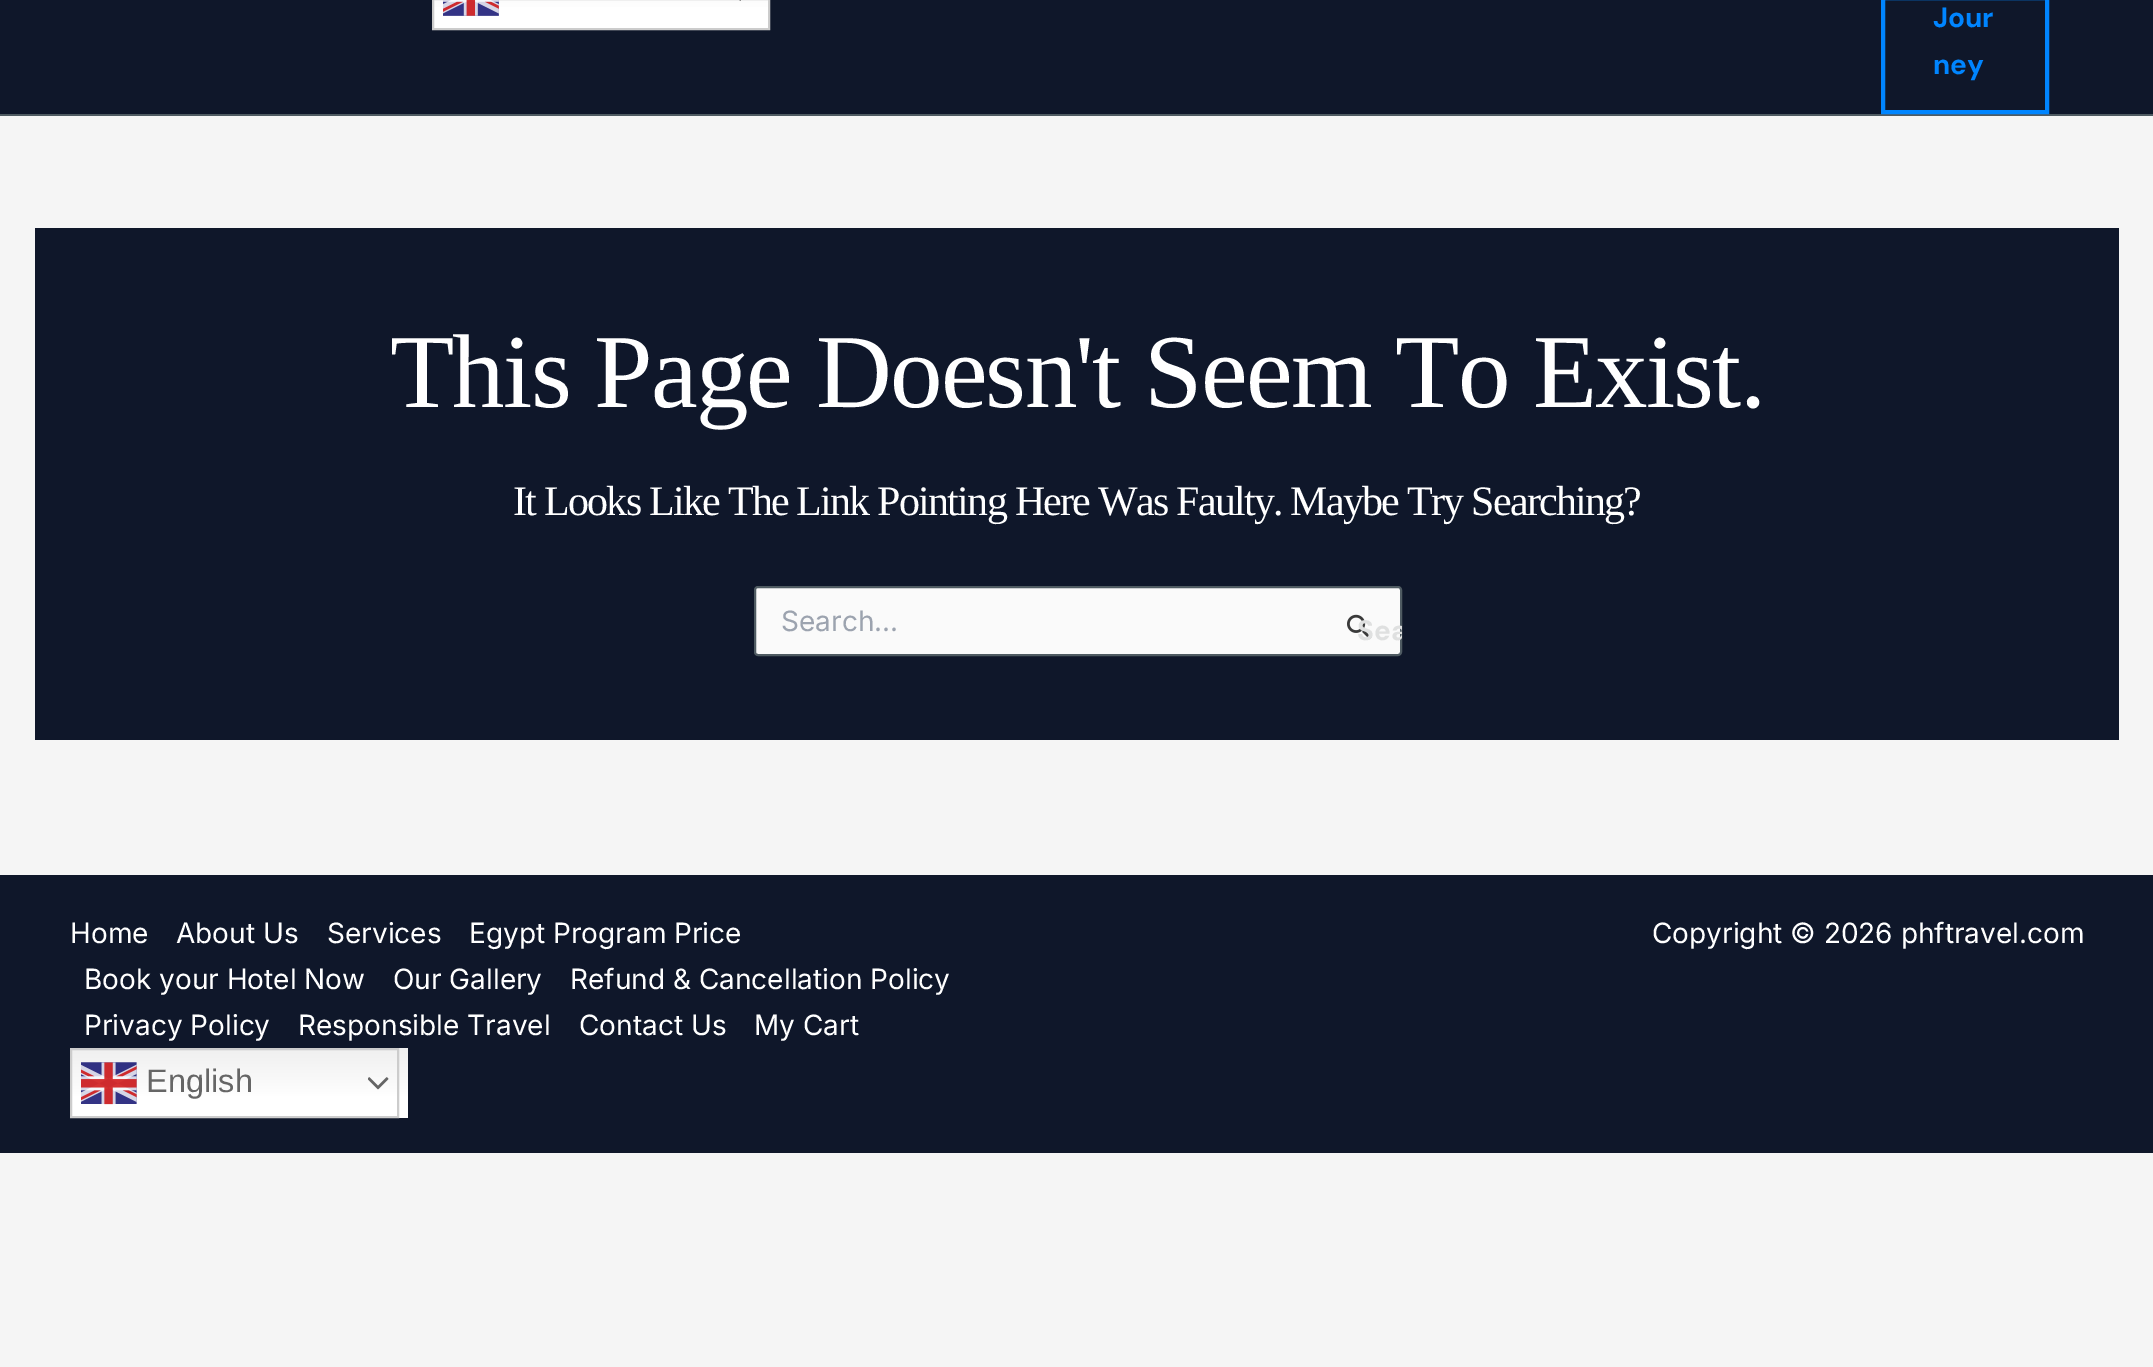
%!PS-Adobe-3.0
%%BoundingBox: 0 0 2153 1367
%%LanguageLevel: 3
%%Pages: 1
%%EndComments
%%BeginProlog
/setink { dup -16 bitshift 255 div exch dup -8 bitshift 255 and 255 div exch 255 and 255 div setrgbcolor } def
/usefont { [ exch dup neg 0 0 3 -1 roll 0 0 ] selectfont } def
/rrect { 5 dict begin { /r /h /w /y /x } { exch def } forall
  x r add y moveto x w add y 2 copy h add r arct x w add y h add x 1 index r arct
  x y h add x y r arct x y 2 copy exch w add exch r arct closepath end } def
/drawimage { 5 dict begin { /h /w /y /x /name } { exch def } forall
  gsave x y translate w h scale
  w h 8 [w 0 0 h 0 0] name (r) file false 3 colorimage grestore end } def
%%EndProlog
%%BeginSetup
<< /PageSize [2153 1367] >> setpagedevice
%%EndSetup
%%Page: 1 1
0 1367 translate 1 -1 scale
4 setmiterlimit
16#F5F5F5 setink
0 0 2153 1367 rectfill
16#0F172A setink
0 0 2153 114 rectfill
16#4F5B62 setink
0 114 2153 2 rectfill
gsave 434 0 moveto 768 0 lineto 768 28 lineto 434 28 lineto closepath clip newpath
<< /ShadingType 2 /ColorSpace /DeviceRGB /Coords [601 -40 601 30] /Extend [true true] /Function << /FunctionType 3 /Domain [0 1] /Functions [<< /FunctionType 2 /Domain [0 1] /C0 [0.937 0.937 0.937] /C1 [1 1 1] /N 1 >> << /FunctionType 2 /Domain [0 1] /C0 [1 1 1] /C1 [1 1 1] /N 1 >>] /Bounds [0.7] /Encode [0 1 0 1] >> >> shfill grestore
16#CCCCCC setink
2 setlinewidth
433 -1 336 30 rectstroke
(img1.raw) 443 0 56 16 drawimage
(img2.raw) 739 0 3 1 drawimage
16#0085FF setink
4 setlinewidth
1883 -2 164 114 rectstroke
/DMSans-Bold 28 usefont
1933 27 moveto (Jour) show
1933 74 moveto (ney) show
16#0F172A setink
35 228 2084 512 rectfill
/LiberationSerif-Regular 105 usefont
16#FFFFFF setink
390 407 moveto -1.75 0 (This Page Doesn't Seem To Exist.) ashow
/LiberationSerif-Regular 42 usefont
513 515 moveto -1.75 0 (It Looks Like The Link Pointing Here Was Faulty. Maybe Try Searching?) ashow
16#FAFAFA setink
755 587 646 68 3 rrect gsave fill grestore
16#4F5B62 setink
2 setlinewidth
stroke
/Inter-Regular 28 usefont
16#9CA3AF setink
781 631 moveto (Search...) show
(img3.raw) 1347 614 25 26 drawimage
gsave
1323 586 79 90 4 rrect clip newpath
/DMSans-Bold 28 usefont
16#DFE0E0 setink
1357 640 moveto (Sea) show
grestore
16#0F172A setink
0 875 2153 278 rectfill
16#FFFFFF setink
[
    [(Home) 70 943]
    [(About Us) 176 943]
    [(Services) 327 943]
    [(Egypt Program Price) 469 943]
    [(Book your Hotel Now) 84 989]
    [(Our Gallery) 393 989]
    [(Refund & Cancellation Policy) 570 989]
    [(Privacy Policy) 84 1035]
    [(Responsible Travel) 298 1035]
    [(Contact Us) 579 1035]
    [(My Cart) 754 1035]
] { aload pop moveto show } forall
gsave 72 1048 moveto 408 1048 lineto 408 1118 lineto 72 1118 lineto closepath clip newpath
<< /ShadingType 2 /ColorSpace /DeviceRGB /Coords [239 1048 239 1118] /Extend [true true] /Function << /FunctionType 3 /Domain [0 1] /Functions [<< /FunctionType 2 /Domain [0 1] /C0 [0.937 0.937 0.937] /C1 [1 1 1] /N 1 >> << /FunctionType 2 /Domain [0 1] /C0 [1 1 1] /C1 [1 1 1] /N 1 >>] /Bounds [0.7] /Encode [0 1 0 1] >> >> shfill grestore
16#CCCCCC setink
71 1049 327 68 rectstroke
(img4.raw) 81 1062 56 43 drawimage
/LiberationSans-Regular 32.5 usefont
16#666666 setink
146 1092 moveto (English) show
(img5.raw) 368 1077 21 13 drawimage
/Inter-Regular 28 usefont
16#FFFFFF setink
1652 943 moveto (Copyright © 2026 phftravel.com) show
showpage
%%EOF
